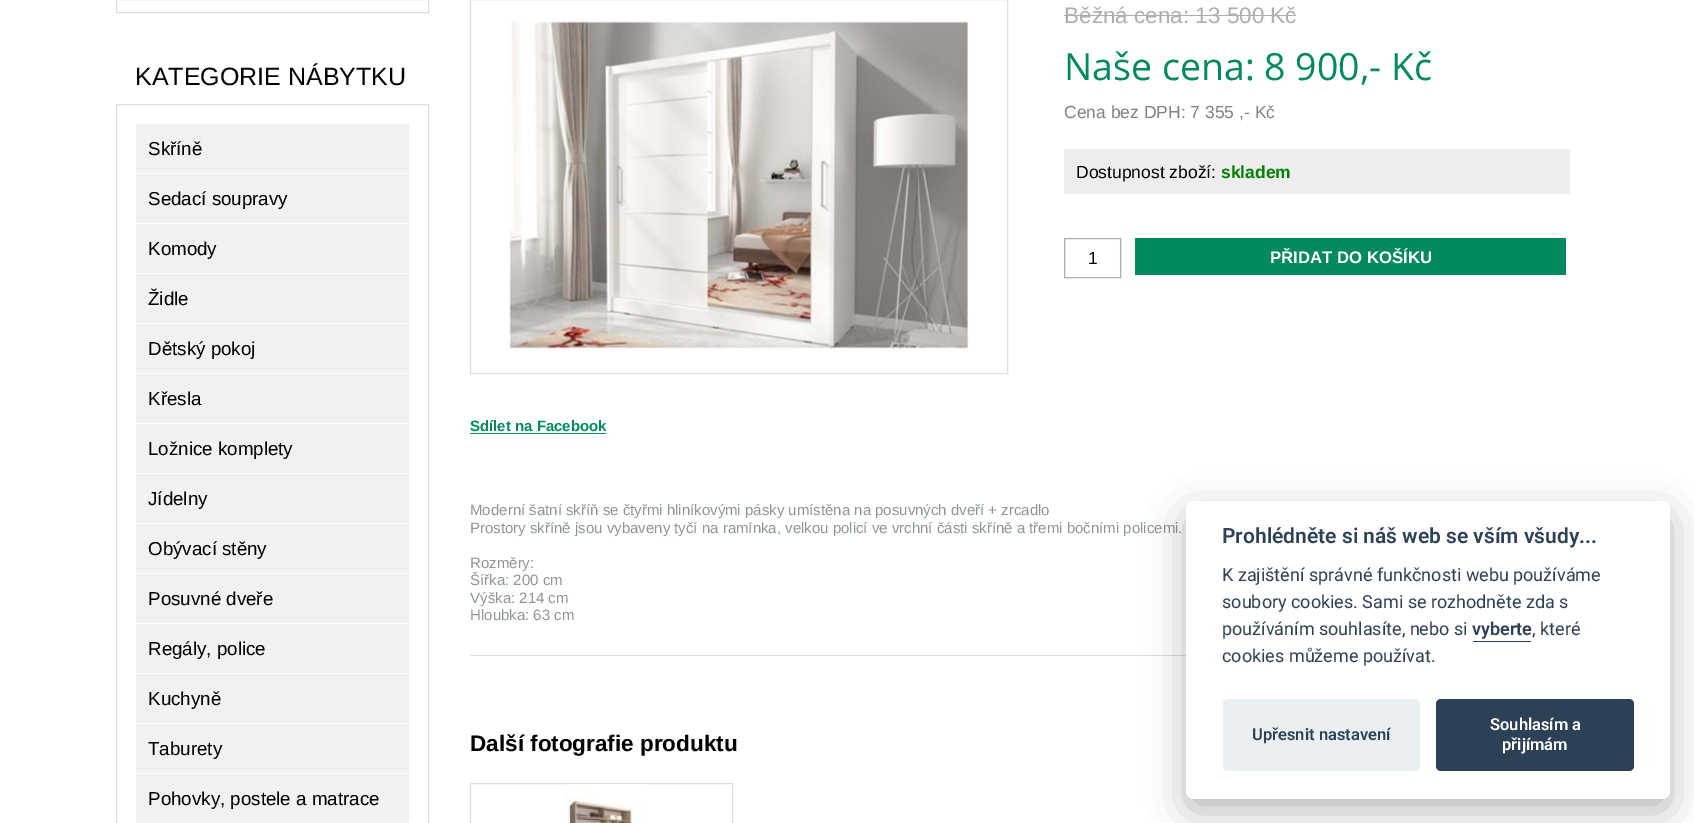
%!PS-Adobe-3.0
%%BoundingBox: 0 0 1694 823
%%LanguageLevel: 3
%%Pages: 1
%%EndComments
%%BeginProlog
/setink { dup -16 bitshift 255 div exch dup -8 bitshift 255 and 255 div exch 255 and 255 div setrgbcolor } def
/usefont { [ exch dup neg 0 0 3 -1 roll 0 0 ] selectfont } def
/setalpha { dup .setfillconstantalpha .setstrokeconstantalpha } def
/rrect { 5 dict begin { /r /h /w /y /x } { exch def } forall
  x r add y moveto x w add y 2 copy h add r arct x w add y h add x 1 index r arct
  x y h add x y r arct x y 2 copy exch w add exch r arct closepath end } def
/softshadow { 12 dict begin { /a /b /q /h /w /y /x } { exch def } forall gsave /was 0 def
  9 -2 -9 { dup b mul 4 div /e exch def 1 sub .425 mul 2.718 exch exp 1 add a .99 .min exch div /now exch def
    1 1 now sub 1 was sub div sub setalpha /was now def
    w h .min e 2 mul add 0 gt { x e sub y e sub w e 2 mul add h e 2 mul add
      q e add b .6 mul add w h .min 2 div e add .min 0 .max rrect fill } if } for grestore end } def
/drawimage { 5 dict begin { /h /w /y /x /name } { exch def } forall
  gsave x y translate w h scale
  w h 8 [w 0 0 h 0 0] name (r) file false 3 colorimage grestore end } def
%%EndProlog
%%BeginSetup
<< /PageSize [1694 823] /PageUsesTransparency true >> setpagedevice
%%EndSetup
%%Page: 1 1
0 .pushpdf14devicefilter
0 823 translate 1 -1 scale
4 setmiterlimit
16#FFFFFF setink
0 0 1694 823 rectfill
16#DEDEDE setink
116.5 -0.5 312 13 rectstroke
/LiberationSans-Regular 25 usefont
16#000000 setink
135 85 moveto (KATEGORIE NÁBYTKU) show
16#DEDEDE setink
116.5 104.5 312 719 rectstroke
16#F1F1F1 setink
136 124 273 49 rectfill
/LiberationSans-Regular 18.75 usefont
16#000000 setink
148 155 moveto (Skříně) show
16#F1F1F1 setink
136 174 273 49 rectfill
16#000000 setink
148 205 moveto (Sedací soupravy) show
16#F1F1F1 setink
136 224 273 49 rectfill
16#000000 setink
148 255 moveto (Komody) show
16#F1F1F1 setink
136 274 273 49 rectfill
16#000000 setink
148 305 moveto (Židle) show
16#F1F1F1 setink
136 324 273 49 rectfill
16#000000 setink
148 355 moveto (Dětský pokoj) show
16#F1F1F1 setink
136 374 273 49 rectfill
16#000000 setink
148 405 moveto (Křesla) show
16#F1F1F1 setink
136 424 273 49 rectfill
16#000000 setink
148 455 moveto (Ložnice komplety) show
16#F1F1F1 setink
136 474 273 49 rectfill
16#000000 setink
148 505 moveto (Jídelny) show
16#F1F1F1 setink
136 524 273 49 rectfill
16#000000 setink
148 555 moveto (Obývací stěny) show
16#F1F1F1 setink
136 574 273 49 rectfill
16#000000 setink
148 605 moveto (Posuvné dveře) show
16#F1F1F1 setink
136 624 273 49 rectfill
16#000000 setink
148 655 moveto (Regály, police) show
16#F1F1F1 setink
136 674 273 49 rectfill
16#000000 setink
148 705 moveto (Kuchyně) show
16#F1F1F1 setink
136 724 273 49 rectfill
16#000000 setink
148 755 moveto (Taburety) show
16#F1F1F1 setink
136 774 273 49 rectfill
16#000000 setink
148 805 moveto (Pohovky, postele a matrace) show
16#DEDEDE setink
470.5 -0.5 537 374 rectstroke
(img1.raw) 507 21 462 329 drawimage
/LiberationSans-Regular 22.5 usefont
16#AEAEAE setink
1064 23 moveto (Běžná cena: 13 500 Kč) show
1064 15 232 1 rectfill
/OpenSans-Regular 37.5 usefont
16#008860 setink
1064 80 moveto (Naše cena: 8 900,- Kč) show
/LiberationSans-Regular 17.5 usefont
16#808080 setink
1064 118 moveto (Cena bez DPH: 7 355 ,- Kč) show
16#EDEDED setink
1064 149 506 45 rectfill
16#000000 setink
1076 178 moveto (Dostupnost zboží:) show
/LiberationSans-Bold 17.5 usefont
16#008000 setink
1221 178 moveto (skladem) show
16#AEAEAE setink
1064.5 238.5 56 39 rectstroke
/LiberationSans-Regular 17.5 usefont
16#000000 setink
1088 264 moveto (1) show
16#008860 setink
1135 238 431 37 rectfill
/LiberationSans-Bold 16.75 usefont
16#FFFFFF setink
1270 263 moveto (PŘIDAT DO KOŠÍKU) show
16#DEDEDE setink
470 655 716 1 rectfill
/LiberationSans-Bold 15 usefont
16#008860 setink
470 431 moveto (Sdílet na Facebook) show
470 433 136 1 rectfill
/LiberationSans-Regular 15 usefont
16#8C9595 setink
[
    [(Moderní šatní skříň se čtyřmi hliníkovými pásky umístěna na posuvných dveří + zrcadlo) 470 515]
    [(Prostory skříně jsou vybaveny tyčí na ramínka, velkou policí ve vrchní části skříně a třemi bočními policemi.) 470 533]
    [(Rozměry:) 470 568]
    [(Šířka: 200 cm) 470 585]
    [(Výška: 214 cm) 470 603]
    [(Hloubka: 63 cm) 470 620]
] { aload pop moveto show } forall
/LiberationSans-Bold 22.5 usefont
16#000000 setink
470 751 moveto (Další fotografie produktu) show
16#DEDEDE setink
470.5 783.5 262 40 rectstroke
(img2.raw) 565 784 80 39 drawimage
16#020203 setink
1186 514 484 297 8 19 0.28 softshadow
16#FFFFFF setink
1186 501 484 298 8 rrect fill
/Roboto-SemiBold 21 usefont
16#2D4156 setink
1222 543 moveto (Prohlédněte si náš web se vším všudy...) show
/Roboto-Regular 18 usefont
[
    [(K zajištění správné funkčnosti webu používáme) 1222 581]
    [(soubory cookies. Sami se rozhodněte zda s) 1222 608]
    [(používáním souhlasíte, nebo si) 1222 635]
] { aload pop moveto show } forall
/Roboto-SemiBold 18 usefont
1472 635 moveto (vyberte) show
1473 641 58 1 rectfill
/Roboto-Regular 18 usefont
1532 635 moveto (, které) show
1222 662 moveto (cookies můžeme používat.) show
16#EAEFF2 setink
1223 699 197 72 5 rrect fill
/Roboto-SemiBold 16.5 usefont
16#2D4156 setink
1252 740 moveto (Upřesnit nastavení) show
1436 699 198 72 5 rrect fill
16#FFFFFF setink
1490 730 moveto (Souhlasím a) show
1502 750 moveto (přijímám) show
.poppdf14devicefilter showpage
%%EOF
